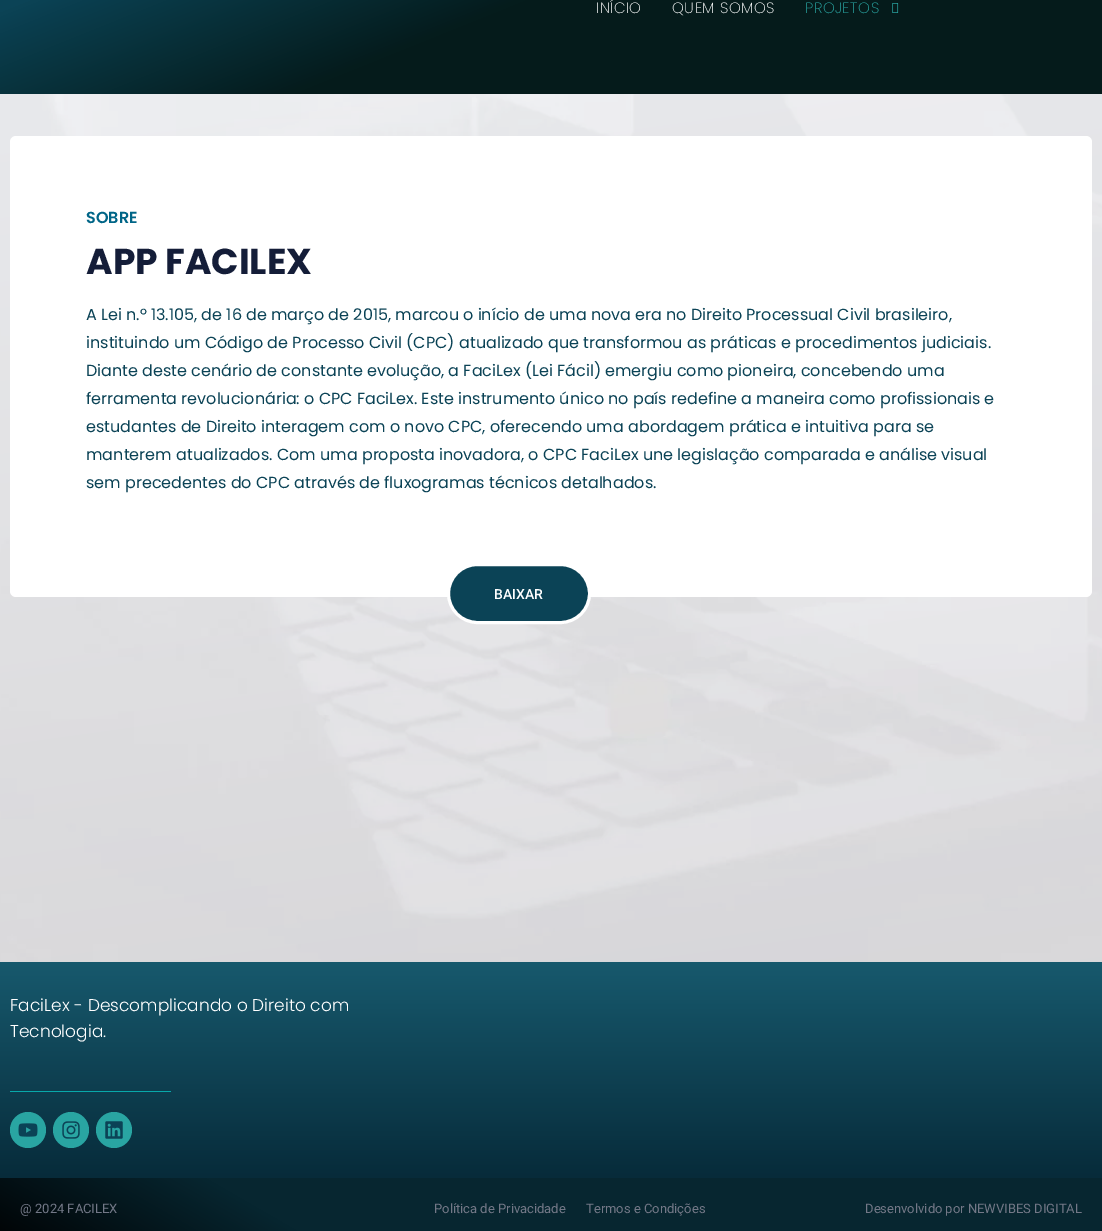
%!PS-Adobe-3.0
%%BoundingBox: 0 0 1102 1231
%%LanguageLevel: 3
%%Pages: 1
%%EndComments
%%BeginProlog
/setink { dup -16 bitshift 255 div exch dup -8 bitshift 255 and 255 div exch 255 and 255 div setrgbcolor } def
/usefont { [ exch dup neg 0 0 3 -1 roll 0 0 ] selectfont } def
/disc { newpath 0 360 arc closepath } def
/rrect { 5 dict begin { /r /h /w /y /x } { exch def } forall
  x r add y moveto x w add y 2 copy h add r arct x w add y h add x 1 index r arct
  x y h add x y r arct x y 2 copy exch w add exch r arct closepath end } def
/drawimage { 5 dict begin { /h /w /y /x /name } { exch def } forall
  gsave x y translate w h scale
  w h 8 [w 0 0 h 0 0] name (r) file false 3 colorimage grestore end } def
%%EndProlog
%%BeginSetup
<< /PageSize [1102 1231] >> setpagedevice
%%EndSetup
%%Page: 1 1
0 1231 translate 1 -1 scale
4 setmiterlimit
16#FFFFFF setink
0 0 1102 1231 rectfill
gsave 0 0 moveto 1102 0 lineto 1102 94 lineto 0 94 lineto closepath clip newpath
<< /ShadingType 2 /ColorSpace /DeviceRGB /Coords [447 -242 655 274] /Extend [true true] /Function << /FunctionType 3 /Domain [0 1] /Functions [<< /FunctionType 2 /Domain [0 1] /C0 [0.043 0.263 0.337] /C1 [0.043 0.263 0.337] /N 1 >> << /FunctionType 2 /Domain [0 1] /C0 [0.043 0.263 0.337] /C1 [0.02 0.106 0.106] /N 1 >> << /FunctionType 2 /Domain [0 1] /C0 [0.02 0.106 0.106] /C1 [0.02 0.106 0.106] /N 1 >>] /Bounds [0.12 0.46] /Encode [0 1 0 1 0 1] >> >> shfill grestore
/Poppins-ExtraLight 15 usefont
596 13 moveto 0.5 0 (INÍCIO) ashow
672 13 moveto 0.5 0 (QUEM SOMOS) ashow
16#29A5A2 setink
805 13 moveto 0.5 0 (PROJETOS) ashow
(img1.raw) 892 3 7 10 drawimage
(img2.raw) 0 94 1102 868 drawimage
16#FFFFFF setink
10 136 1082 461 6 rrect fill
/Poppins-SemiBold 16 usefont
16#006587 setink
86 223 moveto (SOBRE) show
/Poppins-Bold 36 usefont
16#141D38 setink
86 274 moveto (APP FACILEX) show
/Poppins-Regular 16 usefont
16#0B4356 setink
[
    [(A Lei n.º 13.105, de 16 de março de 2015, marcou o início de uma nova era no Direito Processual Civil brasileiro,) 86 320]
    [(instituindo um Código de Processo Civil \(CPC\) atualizado que transformou as práticas e procedimentos judiciais.) 86 348]
    [(Diante deste cenário de constante evolução, a FaciLex \(Lei Fácil\) emergiu como pioneira, concebendo uma) 86 376]
    [(ferramenta revolucionária: o CPC FaciLex. Este instrumento único no país redefine a maneira como profissionais e) 86 404]
    [(estudantes de Direito interagem com o novo CPC, oferecendo uma abordagem prática e intuitiva para se) 86 432]
    [(manterem atualizados. Com uma proposta inovadora, o CPC FaciLex une legislação comparada e análise visual) 86 460]
    [(sem precedentes do CPC através de fluxogramas técnicos detalhados.) 86 488]
] { aload pop moveto show } forall
448.5 564.5 141 58 29 rrect gsave fill grestore
16#FFFFFF setink
3 setlinewidth
stroke
/Roboto-Medium 14 usefont
494 599 moveto (BAIXAR) show
gsave 0 962 moveto 1102 962 lineto 1102 1178 lineto 0 1178 lineto closepath clip newpath
<< /ShadingType 2 /ColorSpace /DeviceRGB /Coords [551 962 551 1178] /Extend [true true] /Function << /FunctionType 2 /Domain [0 1] /C0 [0.09 0.349 0.427] /C1 [0.027 0.169 0.227] /N 1 >> >> shfill grestore
/Poppins-Light 17 usefont
10 1011 moveto (FaciLex - Descomplicando o Direito com) show
10 1037 moveto (Tecnologia.) show
16#08A8AA setink
10 1091 161 1 rectfill
16#29A5A2 setink
28 1130 18 disc fill
(img3.raw) 18 1123 20 14 drawimage
71 1130 18 disc fill
(img4.raw) 62 1121 18 18 drawimage
114 1130 18 disc fill
(img5.raw) 105 1121 18 18 drawimage
gsave 0 1178 moveto 1102 1178 lineto 1102 1231 lineto 0 1231 lineto closepath clip newpath
<< /ShadingType 2 /ColorSpace /DeviceRGB /Coords [706 950 396 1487] /Extend [true true] /Function << /FunctionType 3 /Domain [0 1] /Functions [<< /FunctionType 2 /Domain [0 1] /C0 [0.027 0.149 0.188] /C1 [0.027 0.149 0.188] /N 1 >> << /FunctionType 2 /Domain [0 1] /C0 [0.027 0.149 0.188] /C1 [0 0 0] /N 1 >>] /Bounds [0.72] /Encode [0 1 0 1] >> >> shfill grestore
/Roboto-Regular 13 usefont
16#737887 setink
[
    [(@ 2024 FACILEX) 20 1213]
    [(Política de Privacidade) 434 1213]
    [(Termos e Condições) 586 1213]
    [(Desenvolvido por NEWVIBES DIGITAL) 865 1213]
] { aload pop moveto show } forall
showpage
%%EOF
